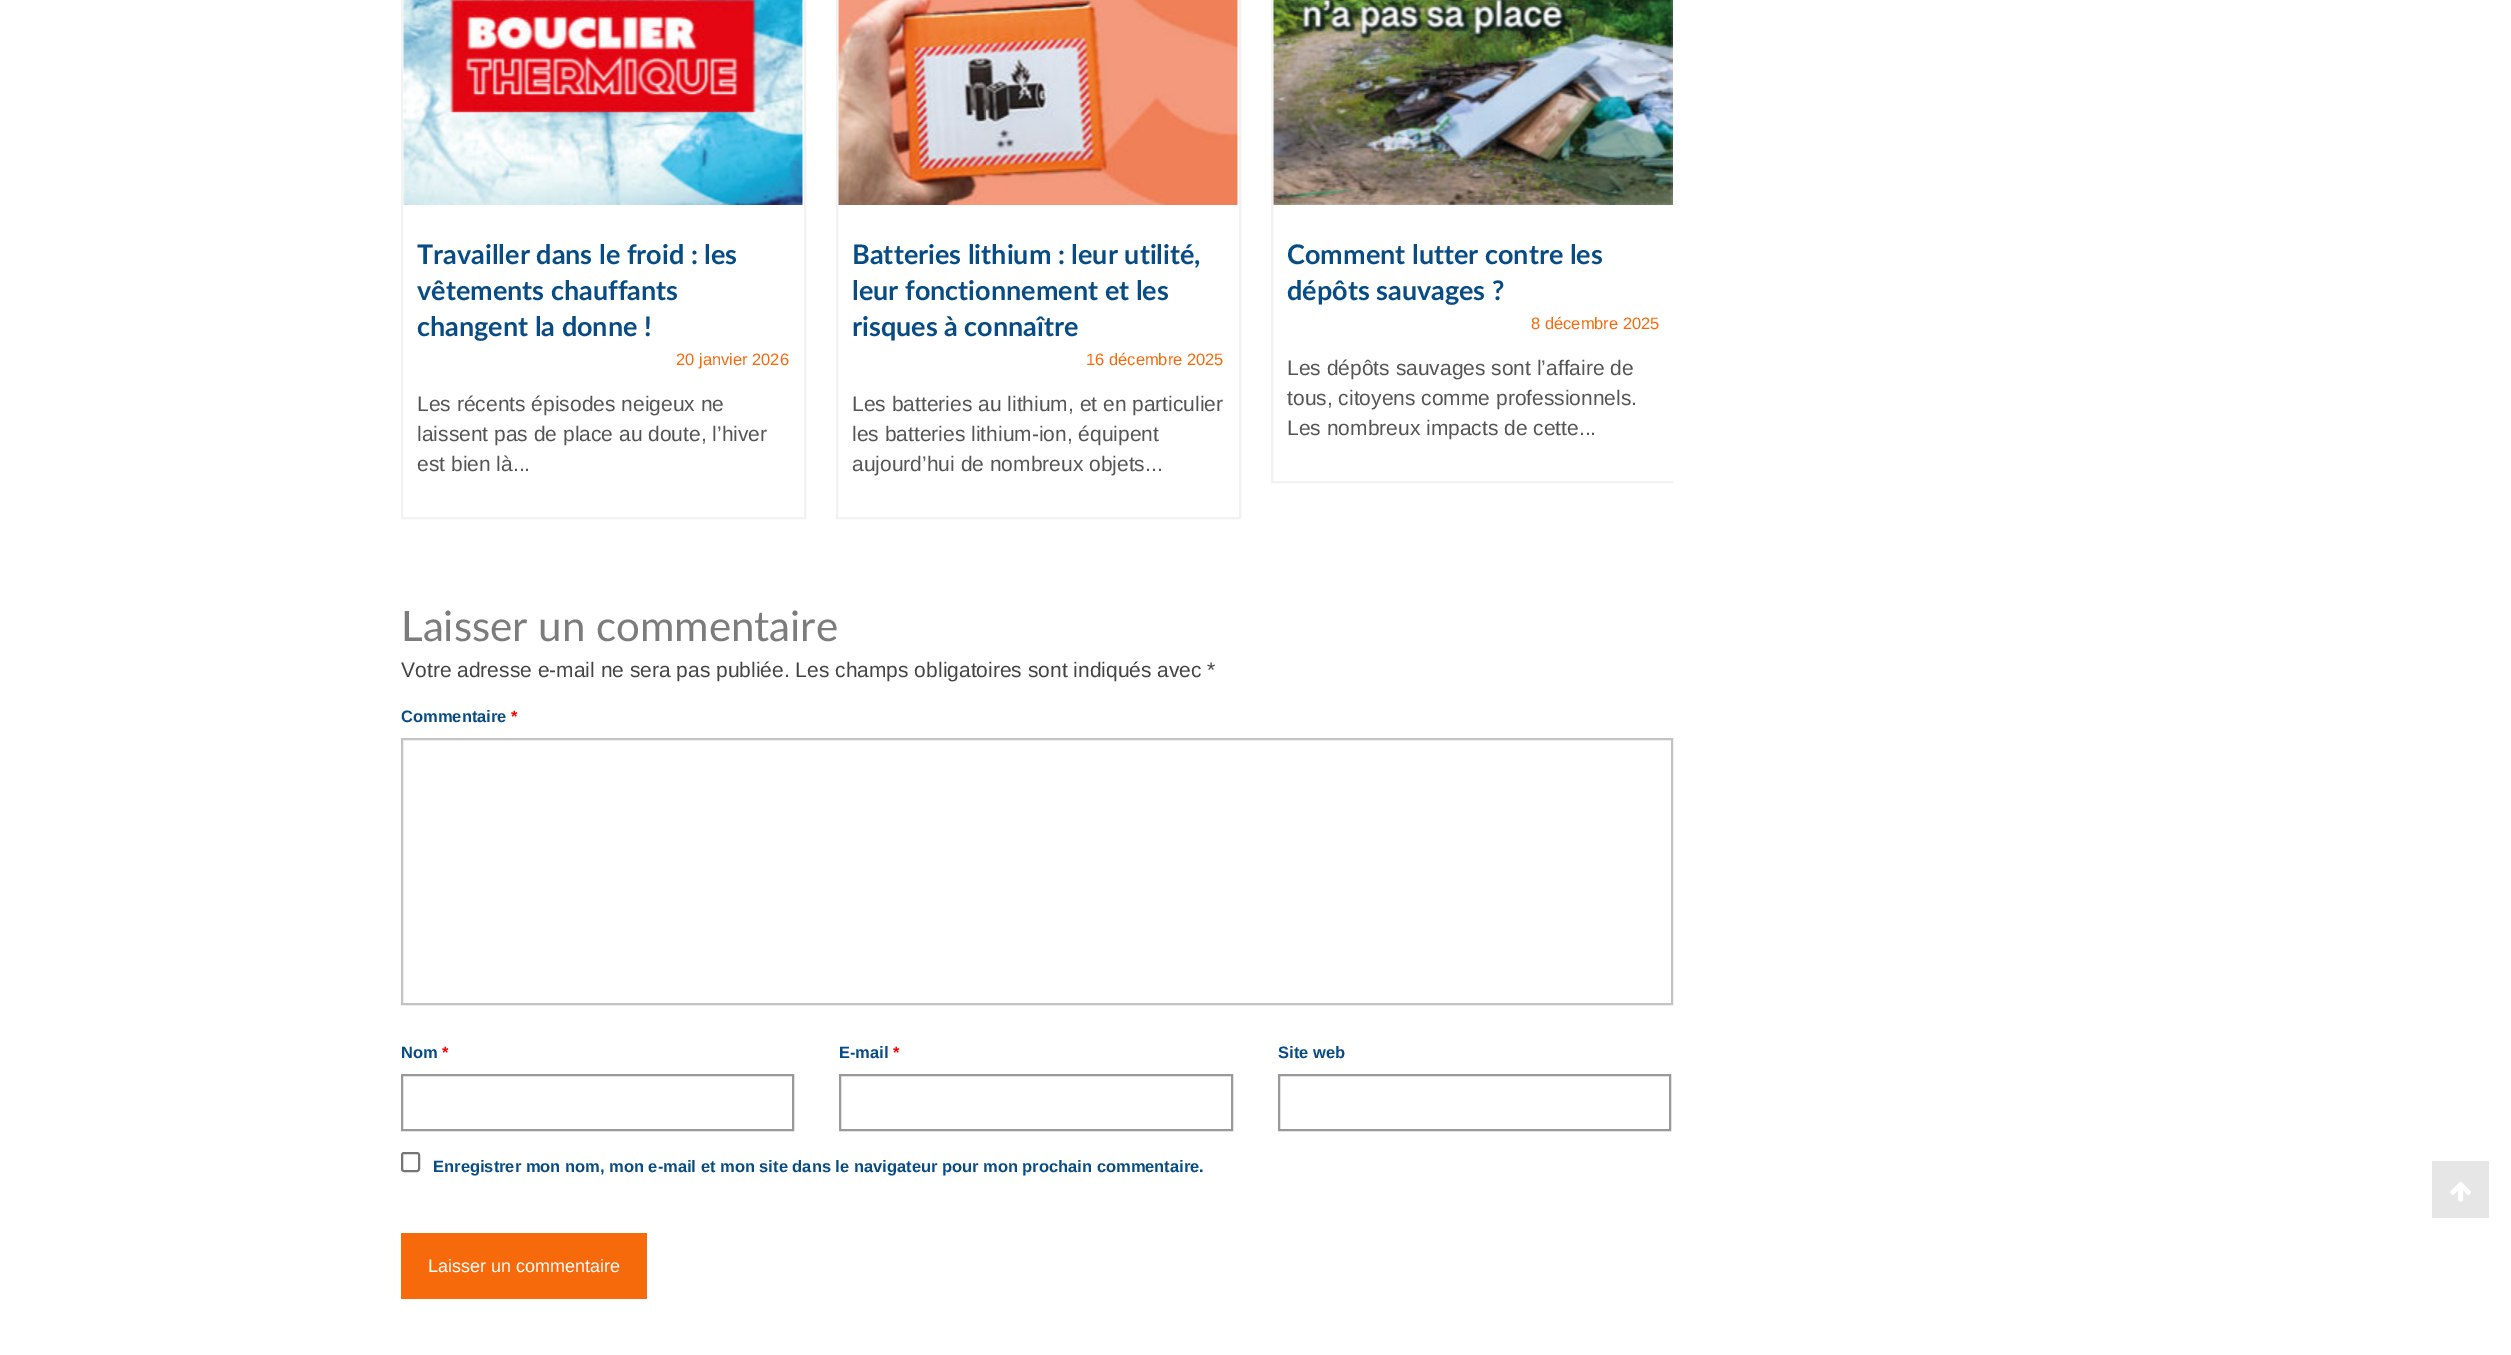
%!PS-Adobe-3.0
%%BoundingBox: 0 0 2511 1355
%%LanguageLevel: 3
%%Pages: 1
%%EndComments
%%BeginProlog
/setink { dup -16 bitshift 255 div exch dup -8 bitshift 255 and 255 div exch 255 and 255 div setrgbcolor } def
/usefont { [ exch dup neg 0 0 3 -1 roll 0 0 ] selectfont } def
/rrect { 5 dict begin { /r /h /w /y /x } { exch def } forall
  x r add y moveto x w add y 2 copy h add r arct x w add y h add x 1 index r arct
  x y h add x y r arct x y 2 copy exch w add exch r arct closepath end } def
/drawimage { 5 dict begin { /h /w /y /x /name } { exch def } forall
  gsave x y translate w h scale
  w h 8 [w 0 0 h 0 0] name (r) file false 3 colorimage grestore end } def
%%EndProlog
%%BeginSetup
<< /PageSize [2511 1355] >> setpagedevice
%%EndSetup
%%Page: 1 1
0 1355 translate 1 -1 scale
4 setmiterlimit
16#FFFFFF setink
0 0 2511 1355 rectfill
16#F2F2F2 setink
2 setlinewidth
402 -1 403 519 rectstroke
(img1.raw) 403 0 400 205 drawimage
/Lato-Bold 27 usefont
16#084C85 setink
[
    [(Travailler dans le froid : les) 417 264]
    [(vêtements chauffants) 417 300]
    [(changent la donne !) 417 336]
] { aload pop moveto show } forall
/LiberationSans-Regular 16.5 usefont
16#F76A0C setink
676 365 moveto (20 janvier 2026) show
/LiberationSans-Regular 21 usefont
16#555555 setink
[
    [(Les récents épisodes neigeux ne) 417 411]
    [(laissent pas de place au doute, l’hiver) 417 441]
    [(est bien là...) 417 471]
] { aload pop moveto show } forall
16#F2F2F2 setink
837 -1 403 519 rectstroke
(img2.raw) 838 0 400 205 drawimage
/Lato-Bold 27 usefont
16#084C85 setink
[
    [(Batteries lithium : leur utilité,) 852 264]
    [(leur fonctionnement et les) 852 300]
    [(risques à connaître) 852 336]
] { aload pop moveto show } forall
/LiberationSans-Regular 16.5 usefont
16#F76A0C setink
1086 365 moveto (16 décembre 2025) show
/LiberationSans-Regular 21 usefont
16#555555 setink
[
    [(Les batteries au lithium, et en particulier) 852 411]
    [(les batteries lithium-ion, équipent) 852 441]
    [(aujourd’hui de nombreux objets...) 852 471]
] { aload pop moveto show } forall
gsave
401 0 1272 549 rectclip
16#F2F2F2 setink
1272 -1 403 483 rectstroke
grestore
(img3.raw) 1273 0 400 205 drawimage
/Lato-Bold 27 usefont
16#084C85 setink
1287 264 moveto (Comment lutter contre les) show
1287 300 moveto (dépôts sauvages ?) show
/LiberationSans-Regular 16.5 usefont
16#F76A0C setink
1531 329 moveto (8 décembre 2025) show
/LiberationSans-Regular 21 usefont
16#555555 setink
[
    [(Les dépôts sauvages sont l’affaire de) 1287 375]
    [(tous, citoyens comme professionnels.) 1287 405]
    [(Les nombreux impacts de cette...) 1287 435]
] { aload pop moveto show } forall
/Lato-Regular 42 usefont
16#7C7C7C setink
401 641 moveto (Laisser un commentaire) show
/LiberationSans-Regular 21 usefont
16#444444 setink
401 677 moveto (Votre adresse e-mail ne sera pas publiée. Les champs obligatoires sont indiqués avec *) show
/LiberationSans-Bold 16.5 usefont
16#084C85 setink
401 722 moveto (Commentaire) show
16#FF0000 setink
511 722 moveto (*) show
16#C3C3C3 setink
402 739 1270 265 rectstroke
16#084C85 setink
401 1058 moveto (Nom) show
16#FF0000 setink
442 1058 moveto (*) show
16#999999 setink
402 1075 391 55 rectstroke
16#084C85 setink
839 1058 moveto (E-mail) show
16#FF0000 setink
893 1058 moveto (*) show
16#999999 setink
840 1075 392 55 rectstroke
16#084C85 setink
1278 1058 moveto (Site web) show
16#999999 setink
1279 1075 391 55 rectstroke
16#767676 setink
402 1153 17 18 2 rrect stroke
16#084C85 setink
433 1172 moveto (Enregistrer mon nom, mon e-mail et mon site dans le navigateur pour mon prochain commentaire.) show
16#F76A0C setink
401 1233 246 66 rectfill
/LiberationSans-Regular 18 usefont
16#FFFFFF setink
428 1272 moveto (Laisser un commentaire) show
16#E6E6E6 setink
2432 1161 57 57 rectfill
(img4.raw) 2450 1182 21 20 drawimage
showpage
%%EOF
